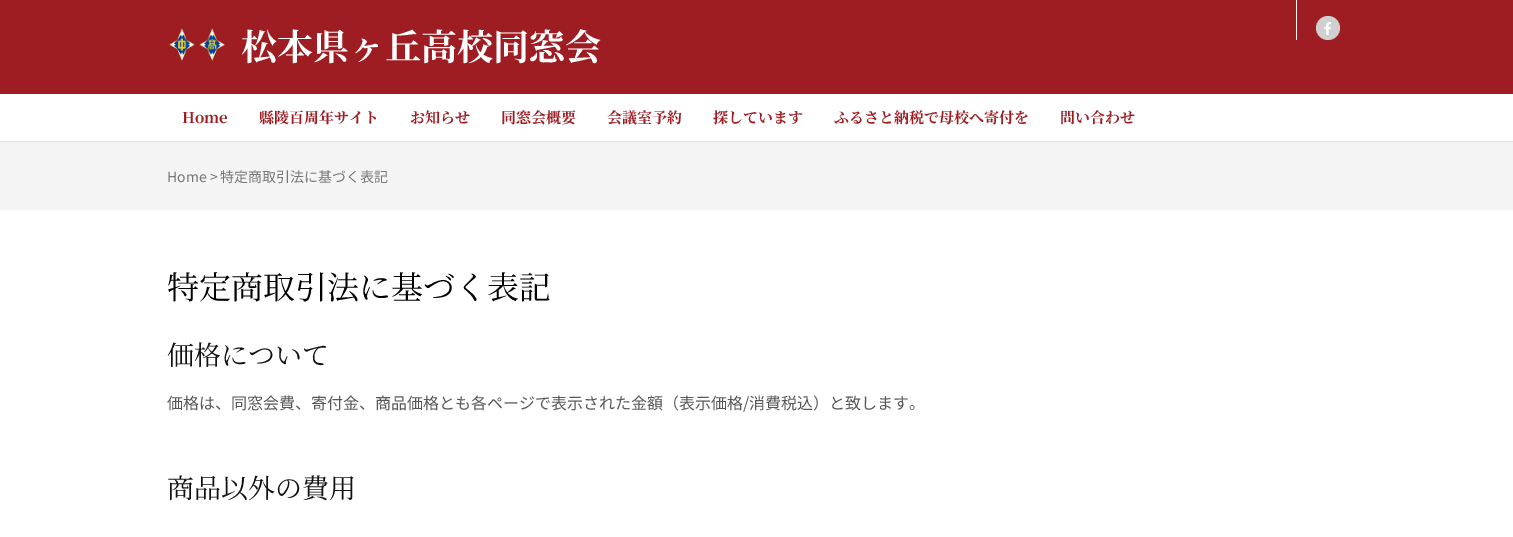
%!PS-Adobe-3.0
%%BoundingBox: 0 0 1513 537
%%LanguageLevel: 3
%%Pages: 1
%%EndComments
%%BeginProlog
/setink { dup -16 bitshift 255 div exch dup -8 bitshift 255 and 255 div exch 255 and 255 div setrgbcolor } def
/usefont { [ exch dup neg 0 0 3 -1 roll 0 0 ] selectfont } def
/disc { newpath 0 360 arc closepath } def
/drawimage { 5 dict begin { /h /w /y /x /name } { exch def } forall
  gsave x y translate w h scale
  w h 8 [w 0 0 h 0 0] name (r) file false 3 colorimage grestore end } def
%%EndProlog
%%BeginSetup
<< /PageSize [1513 537] >> setpagedevice
%%EndSetup
%%Page: 1 1
0 537 translate 1 -1 scale
4 setmiterlimit
16#FFFFFF setink
0 0 1513 537 rectfill
[
    [0 141 1513 1 16#E4E4E4]
    [0 0 1513 94 16#9D1D22]
    [1296 0 1 40 16#F2F2F2]
] { aload pop setink rectfill } forall
16#D0D0D0 setink
1328 28 12 disc fill
(img1.raw) 1324 22 7 13 drawimage
(img2.raw) 169 28 56 33 drawimage
/NotoSerifJP-Bold 36 usefont
16#FFFFFF setink
241 60 moveto (松本県ヶ丘高校同窓会) show
/NotoSerifJP-Bold 15 usefont
16#9D1D22 setink
[
    [(Home) 182 123]
    [(縣陵百周年サイト) 259 123]
    [(お知らせ) 410 123]
    [(同窓会概要) 501 123]
    [(会議室予約) 607 123]
    [(探しています) 713 123]
    [(ふるさと納税で母校へ寄付を) 834 123]
    [(問い合わせ) 1060 123]
] { aload pop moveto show } forall
16#F4F4F4 setink
0 142 1513 68 rectfill
/NotoSansJP-Thin 14 usefont
16#777777 setink
167 182 moveto (Home > 特定商取引法に基づく表記) show
/NotoSerifJP-Regular 32 usefont
16#000000 setink
167 299 moveto (特定商取引法に基づく表記) show
/NotoSerifJP-Regular 27 usefont
16#121212 setink
167 365 moveto (価格について) show
/NotoSansJP-Thin 16 usefont
16#585858 setink
167 409 moveto (価格は、同窓会費、寄付金、商品価格とも各ページで表示された金額（表示価格/消費税込）と致します。) show
/NotoSerifJP-Regular 27 usefont
16#121212 setink
167 498 moveto (商品以外の費用) show
showpage
%%EOF
